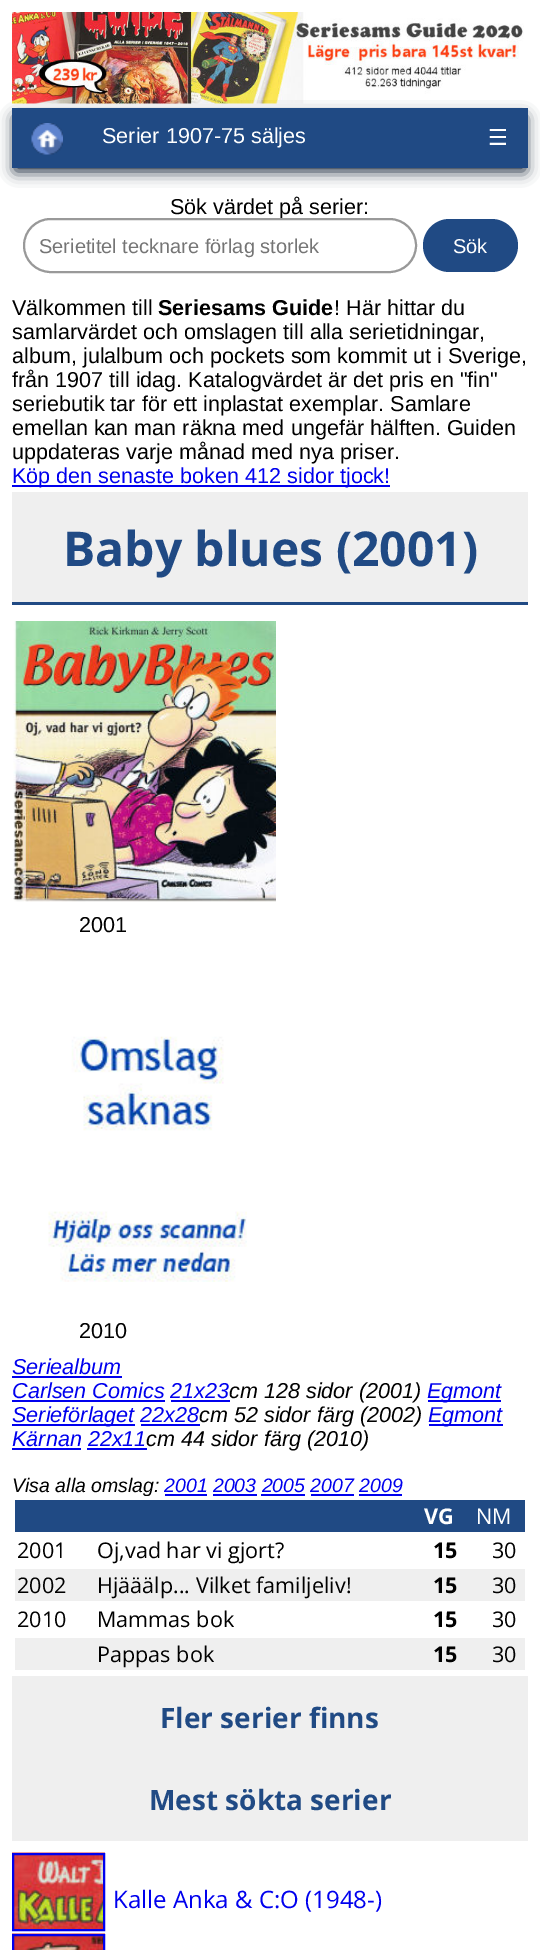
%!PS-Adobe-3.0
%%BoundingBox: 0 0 540 1950
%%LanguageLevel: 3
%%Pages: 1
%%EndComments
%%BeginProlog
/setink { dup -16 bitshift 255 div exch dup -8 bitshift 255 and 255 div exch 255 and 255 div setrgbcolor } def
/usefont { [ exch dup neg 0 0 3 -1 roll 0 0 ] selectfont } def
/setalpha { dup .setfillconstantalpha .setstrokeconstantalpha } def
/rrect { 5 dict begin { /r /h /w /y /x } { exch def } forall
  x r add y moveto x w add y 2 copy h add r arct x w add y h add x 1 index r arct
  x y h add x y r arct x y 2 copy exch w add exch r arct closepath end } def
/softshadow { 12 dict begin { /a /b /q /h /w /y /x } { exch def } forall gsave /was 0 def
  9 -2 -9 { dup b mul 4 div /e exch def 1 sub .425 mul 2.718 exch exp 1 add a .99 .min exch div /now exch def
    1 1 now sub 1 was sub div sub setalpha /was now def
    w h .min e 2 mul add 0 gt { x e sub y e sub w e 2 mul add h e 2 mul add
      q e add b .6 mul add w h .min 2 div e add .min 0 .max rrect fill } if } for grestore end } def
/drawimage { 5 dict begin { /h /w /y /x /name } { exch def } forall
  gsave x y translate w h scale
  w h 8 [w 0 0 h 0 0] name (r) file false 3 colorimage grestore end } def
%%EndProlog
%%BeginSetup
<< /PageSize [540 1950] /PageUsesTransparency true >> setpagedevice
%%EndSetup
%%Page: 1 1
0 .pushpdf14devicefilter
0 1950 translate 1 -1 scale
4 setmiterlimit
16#FFFFFF setink
0 0 540 1950 rectfill
(img1.raw) 12 12 512 92 drawimage
16#09192F setink
15 117 510 54 0 7.5 1 softshadow
16#204A84 setink
12 108 516 60 rectfill
(img2.raw) 31 123 32 32 drawimage
/LiberationSans-Regular 21.6 usefont
16#FFFFFF setink
102 143 moveto (Serier 1907-75 säljes) show
/DejaVuSans-Regular 22 usefont
488 145 moveto (☰) show
/LiberationSans-Regular 21.6 usefont
16#000000 setink
170 214 moveto (Sök värdet på serier:) show
16#FFFFFF setink
24 219 392 53 26.5 rrect gsave fill grestore
16#999999 setink
2 setlinewidth
stroke
/LiberationSans-Regular 20 usefont
16#757575 setink
39 253 moveto (Serietitel tecknare förlag storlek) show
16#204A84 setink
423 219 95 53 26.5 rrect fill
16#FFFFFF setink
453 253 moveto (Sök) show
/LiberationSans-Regular 21.6 usefont
16#000000 setink
12 315 moveto (Välkommen till) show
/LiberationSans-Bold 21.6 usefont
158 315 moveto (Seriesams Guide) show
/LiberationSans-Regular 21.6 usefont
[
    [(! Här hittar du) 334 315]
    [(samlarvärdet och omslagen till alla serietidningar,) 12 339]
    [(album, julalbum och pockets som kommit ut i Sverige,) 12 363]
    [(från 1907 till idag. Katalogvärdet är det pris en "fin") 12 387]
    [(seriebutik tar för ett inplastat exemplar. Samlare) 12 411]
    [(emellan kan man räkna med ungefär hälften. Guiden) 12 435]
    [(uppdateras varje månad med nya priser.) 12 459]
] { aload pop moveto show } forall
16#0000EE setink
12 485 378 2 rectfill
12 483 moveto (Köp den senaste boken 412 sidor tjock!) show
16#EFEFEF setink
12 492 516 110 rectfill
16#204A84 setink
12 602 516 3 rectfill
/OpenSans-Bold 48 usefont
63 566 moveto (Baby blues \(2001\)) show
(img3.raw) 13 621 263 281 drawimage
/LiberationSans-Regular 21.6 usefont
16#000000 setink
79 932 moveto (2001) show
(img4.raw) 48 1036 199 246 drawimage
79 1338 moveto (2010) show
/LiberationSans-Italic 21.6 usefont
16#0000EE setink
12 1374 moveto (Seriealbum) show
12 1376 110 2 rectfill
12 1398 moveto (Carlsen Comics 21x23) show
12 1400 153 2 rectfill
171 1400 59 2 rectfill
16#000000 setink
229 1398 moveto (cm 128 sidor \(2001\)) show
16#0000EE setink
428 1400 73 2 rectfill
427 1398 moveto (Egmont) show
12 1424 123 2 rectfill
12 1422 moveto (Serieförlaget 22x28) show
141 1424 59 2 rectfill
16#000000 setink
199 1422 moveto (cm 52 sidor färg \(2002\)) show
16#0000EE setink
429 1424 74 2 rectfill
428 1422 moveto (Egmont) show
12 1446 moveto (Kärnan 22x11) show
12 1448 69 2 rectfill
16#000000 setink
146 1446 moveto (cm 44 sidor färg \(2010\)) show
16#0000EE setink
87 1448 60 2 rectfill
/LiberationSans-Italic 19.5 usefont
16#000000 setink
12 1492 moveto (Visa alla omslag:) show
16#0000EE setink
164 1492 moveto (2001 2003 2005 2007 2009) show
[
    [165 1494 42 2 16#0000EE]
    [213 1494 44 2 16#0000EE]
    [261 1494 44 2 16#0000EE]
    [311 1494 43 2 16#0000EE]
    [359 1494 43 2 16#0000EE]
    [15 1500 510 32 16#204A84]
] { aload pop setink rectfill } forall
/OpenSans-Bold 21.6 usefont
16#FFFFFF setink
424 1524 moveto (VG) show
/OpenSans-Regular 21.6 usefont
476 1524 moveto (NM) show
16#000000 setink
17 1558 moveto (2001) show
97 1558 moveto (Oj,vad har vi gjort?) show
/OpenSans-Bold 21.6 usefont
433 1558 moveto (15) show
/OpenSans-Regular 21.6 usefont
492 1558 moveto (30) show
16#EFEFEF setink
15 1569 510 32 rectfill
16#000000 setink
17 1593 moveto (2002) show
97 1593 moveto (Hjääälp... Vilket familjeliv!) show
/OpenSans-Bold 21.6 usefont
433 1593 moveto (15) show
/OpenSans-Regular 21.6 usefont
[
    [(30) 492 1593]
    [(2010) 17 1627]
    [(Mammas bok) 97 1627]
] { aload pop moveto show } forall
/OpenSans-Bold 21.6 usefont
433 1627 moveto (15) show
/OpenSans-Regular 21.6 usefont
492 1627 moveto (30) show
16#EFEFEF setink
15 1638 510 32 rectfill
16#000000 setink
97 1662 moveto (Pappas bok) show
/OpenSans-Bold 21.6 usefont
433 1662 moveto (15) show
/OpenSans-Regular 21.6 usefont
492 1662 moveto (30) show
16#EFEFEF setink
12 1676 516 165 rectfill
/OpenSans-Bold 28 usefont
16#204A84 setink
160 1728 moveto (Fler serier finns) show
149 1810 moveto (Mest sökta serier) show
(img5.raw) 12 1852 93 77 drawimage
16#0000EE setink
13 1854 91 76 rectstroke
/OpenSans-Regular 24 usefont
113 1908 moveto (Kalle Anka & C:O \(1948-\)) show
(img6.raw) 12 1933 93 17 drawimage
13 1935 91 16 rectstroke
.poppdf14devicefilter showpage
%%EOF
